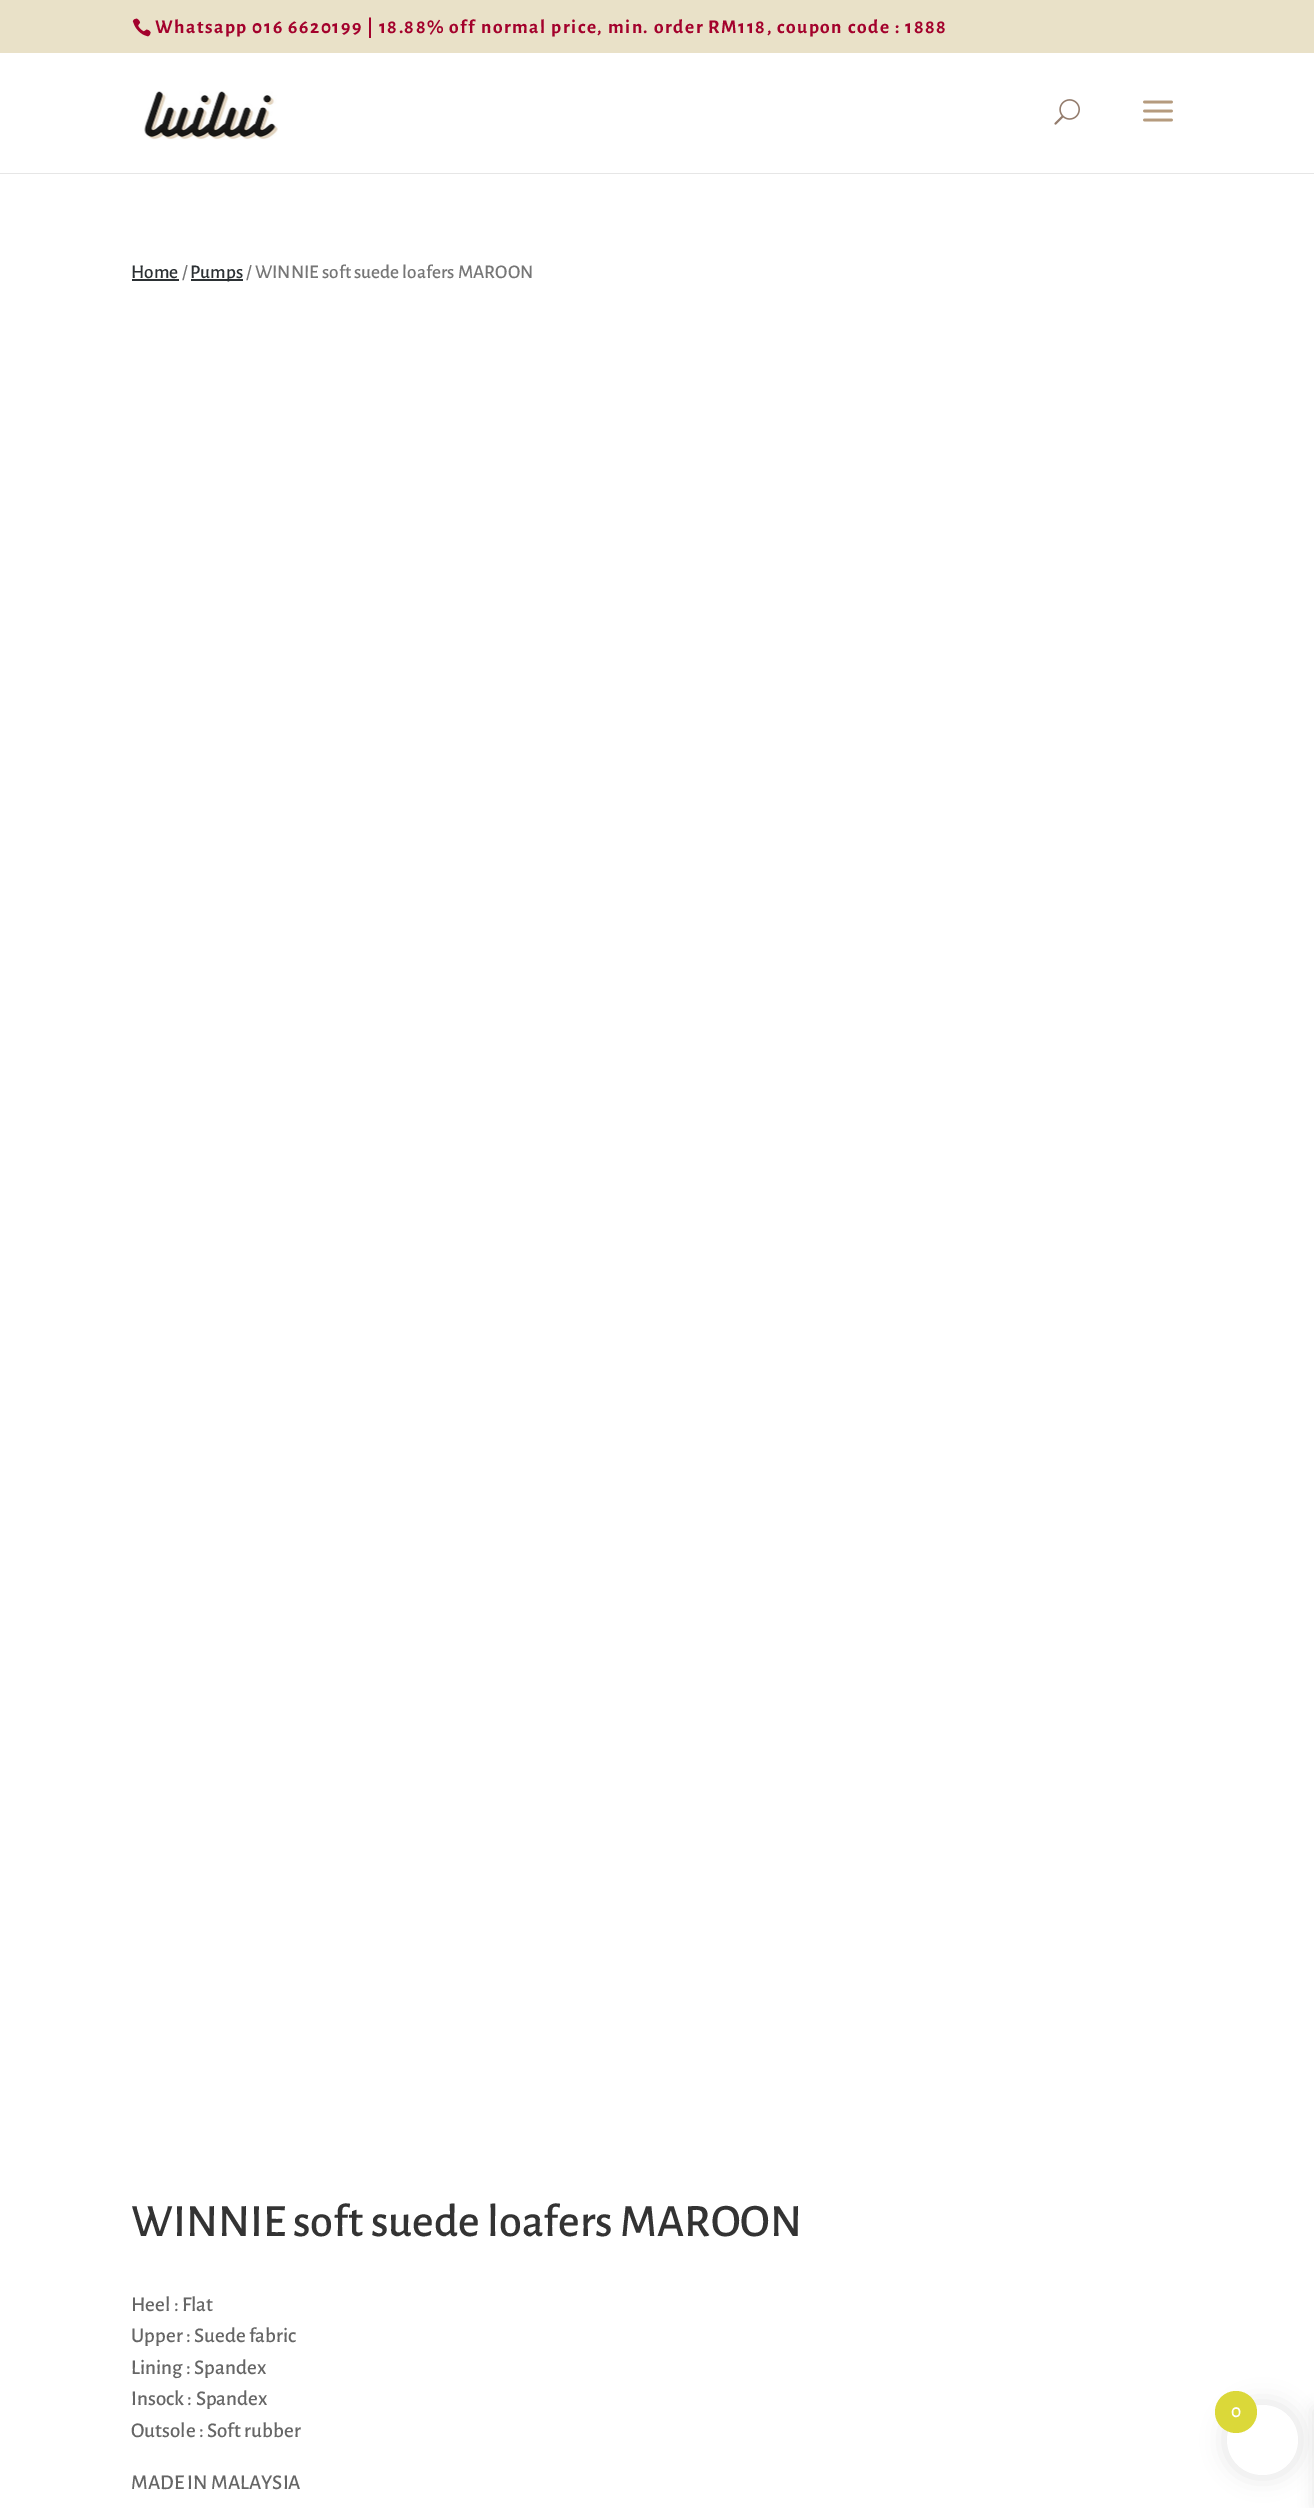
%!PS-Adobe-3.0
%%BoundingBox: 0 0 1314 2508
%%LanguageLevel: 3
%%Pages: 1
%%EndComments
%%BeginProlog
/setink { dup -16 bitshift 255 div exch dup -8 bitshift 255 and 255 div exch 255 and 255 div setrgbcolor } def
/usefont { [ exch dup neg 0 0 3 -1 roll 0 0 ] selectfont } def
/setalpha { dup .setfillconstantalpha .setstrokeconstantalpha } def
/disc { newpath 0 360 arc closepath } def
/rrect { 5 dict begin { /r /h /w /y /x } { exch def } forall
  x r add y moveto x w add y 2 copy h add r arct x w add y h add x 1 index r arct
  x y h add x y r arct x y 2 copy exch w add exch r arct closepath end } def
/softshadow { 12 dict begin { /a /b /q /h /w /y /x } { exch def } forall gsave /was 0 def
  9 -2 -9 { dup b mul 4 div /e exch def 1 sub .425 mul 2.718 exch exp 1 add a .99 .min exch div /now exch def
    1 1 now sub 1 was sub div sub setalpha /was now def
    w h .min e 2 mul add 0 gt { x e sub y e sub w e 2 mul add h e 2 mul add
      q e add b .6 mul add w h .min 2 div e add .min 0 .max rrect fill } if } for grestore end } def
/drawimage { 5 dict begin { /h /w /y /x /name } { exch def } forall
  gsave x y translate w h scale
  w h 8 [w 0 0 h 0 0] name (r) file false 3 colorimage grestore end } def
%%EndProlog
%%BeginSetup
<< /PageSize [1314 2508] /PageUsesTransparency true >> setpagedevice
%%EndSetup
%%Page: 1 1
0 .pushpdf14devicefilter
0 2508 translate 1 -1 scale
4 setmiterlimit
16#FFFFFF setink
0 0 1314 2508 rectfill
16#E9E1C8 setink
0 0 1314 53 rectfill
(img1.raw) 132 18 19 19 drawimage
/AlegreyaSans-Bold 19.5 usefont
16#A3012C setink
155 33 moveto 1.5 0 (Whatsapp 016 6620199 | 18.88% off normal price, min. order RM118, coupon code : 1888) ashow
16#E6E6E6 setink
0 173 1314 1 rectfill
(img2.raw) 144 91 134 49 drawimage
(img3.raw) 1054 99 26 26 drawimage
(img4.raw) 1143 100 30 22 drawimage
/AlegreyaSans-Medium 19.3 usefont
16#2B3033 setink
131 278 moveto (Home) show
132 279 47 2 rectfill
16#767676 setink
182 278 moveto (/) show
16#2B3033 setink
191 279 52 2 rectfill
190 278 moveto (Pumps) show
16#767676 setink
246 278 moveto (/ WINNIE soft suede loafers MAROON) show
/AlegreyaSans-Medium 46.5 usefont
16#333333 setink
131 2236 moveto (WINNIE soft suede loafers MAROON) show
/AlegreyaSans-Medium 21 usefont
16#666666 setink
[
    [(Heel : Flat) 131 2311]
    [(Upper : Suede fabric) 131 2342]
    [(Lining : Spandex) 131 2374]
    [(Insock : Spandex) 131 2405]
    [(Outsole : Soft rubber) 131 2437]
    [(MADE IN MALAYSIA) 131 2489]
] { aload pop moveto show } forall
16#000000 setink
1224 2402 77 76 38 11 0.1 softshadow
1314 2409 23 98 0 7.5 0.1 softshadow
16#FFFFFF setink
1227 2405 71 70 35 rrect fill
16#DBD839 setink
1236 2412 21 disc fill
/AlegreyaSans-Medium 19.5 usefont
16#FFFFFF setink
1231 2417 moveto (0) show
.poppdf14devicefilter showpage
%%EOF
